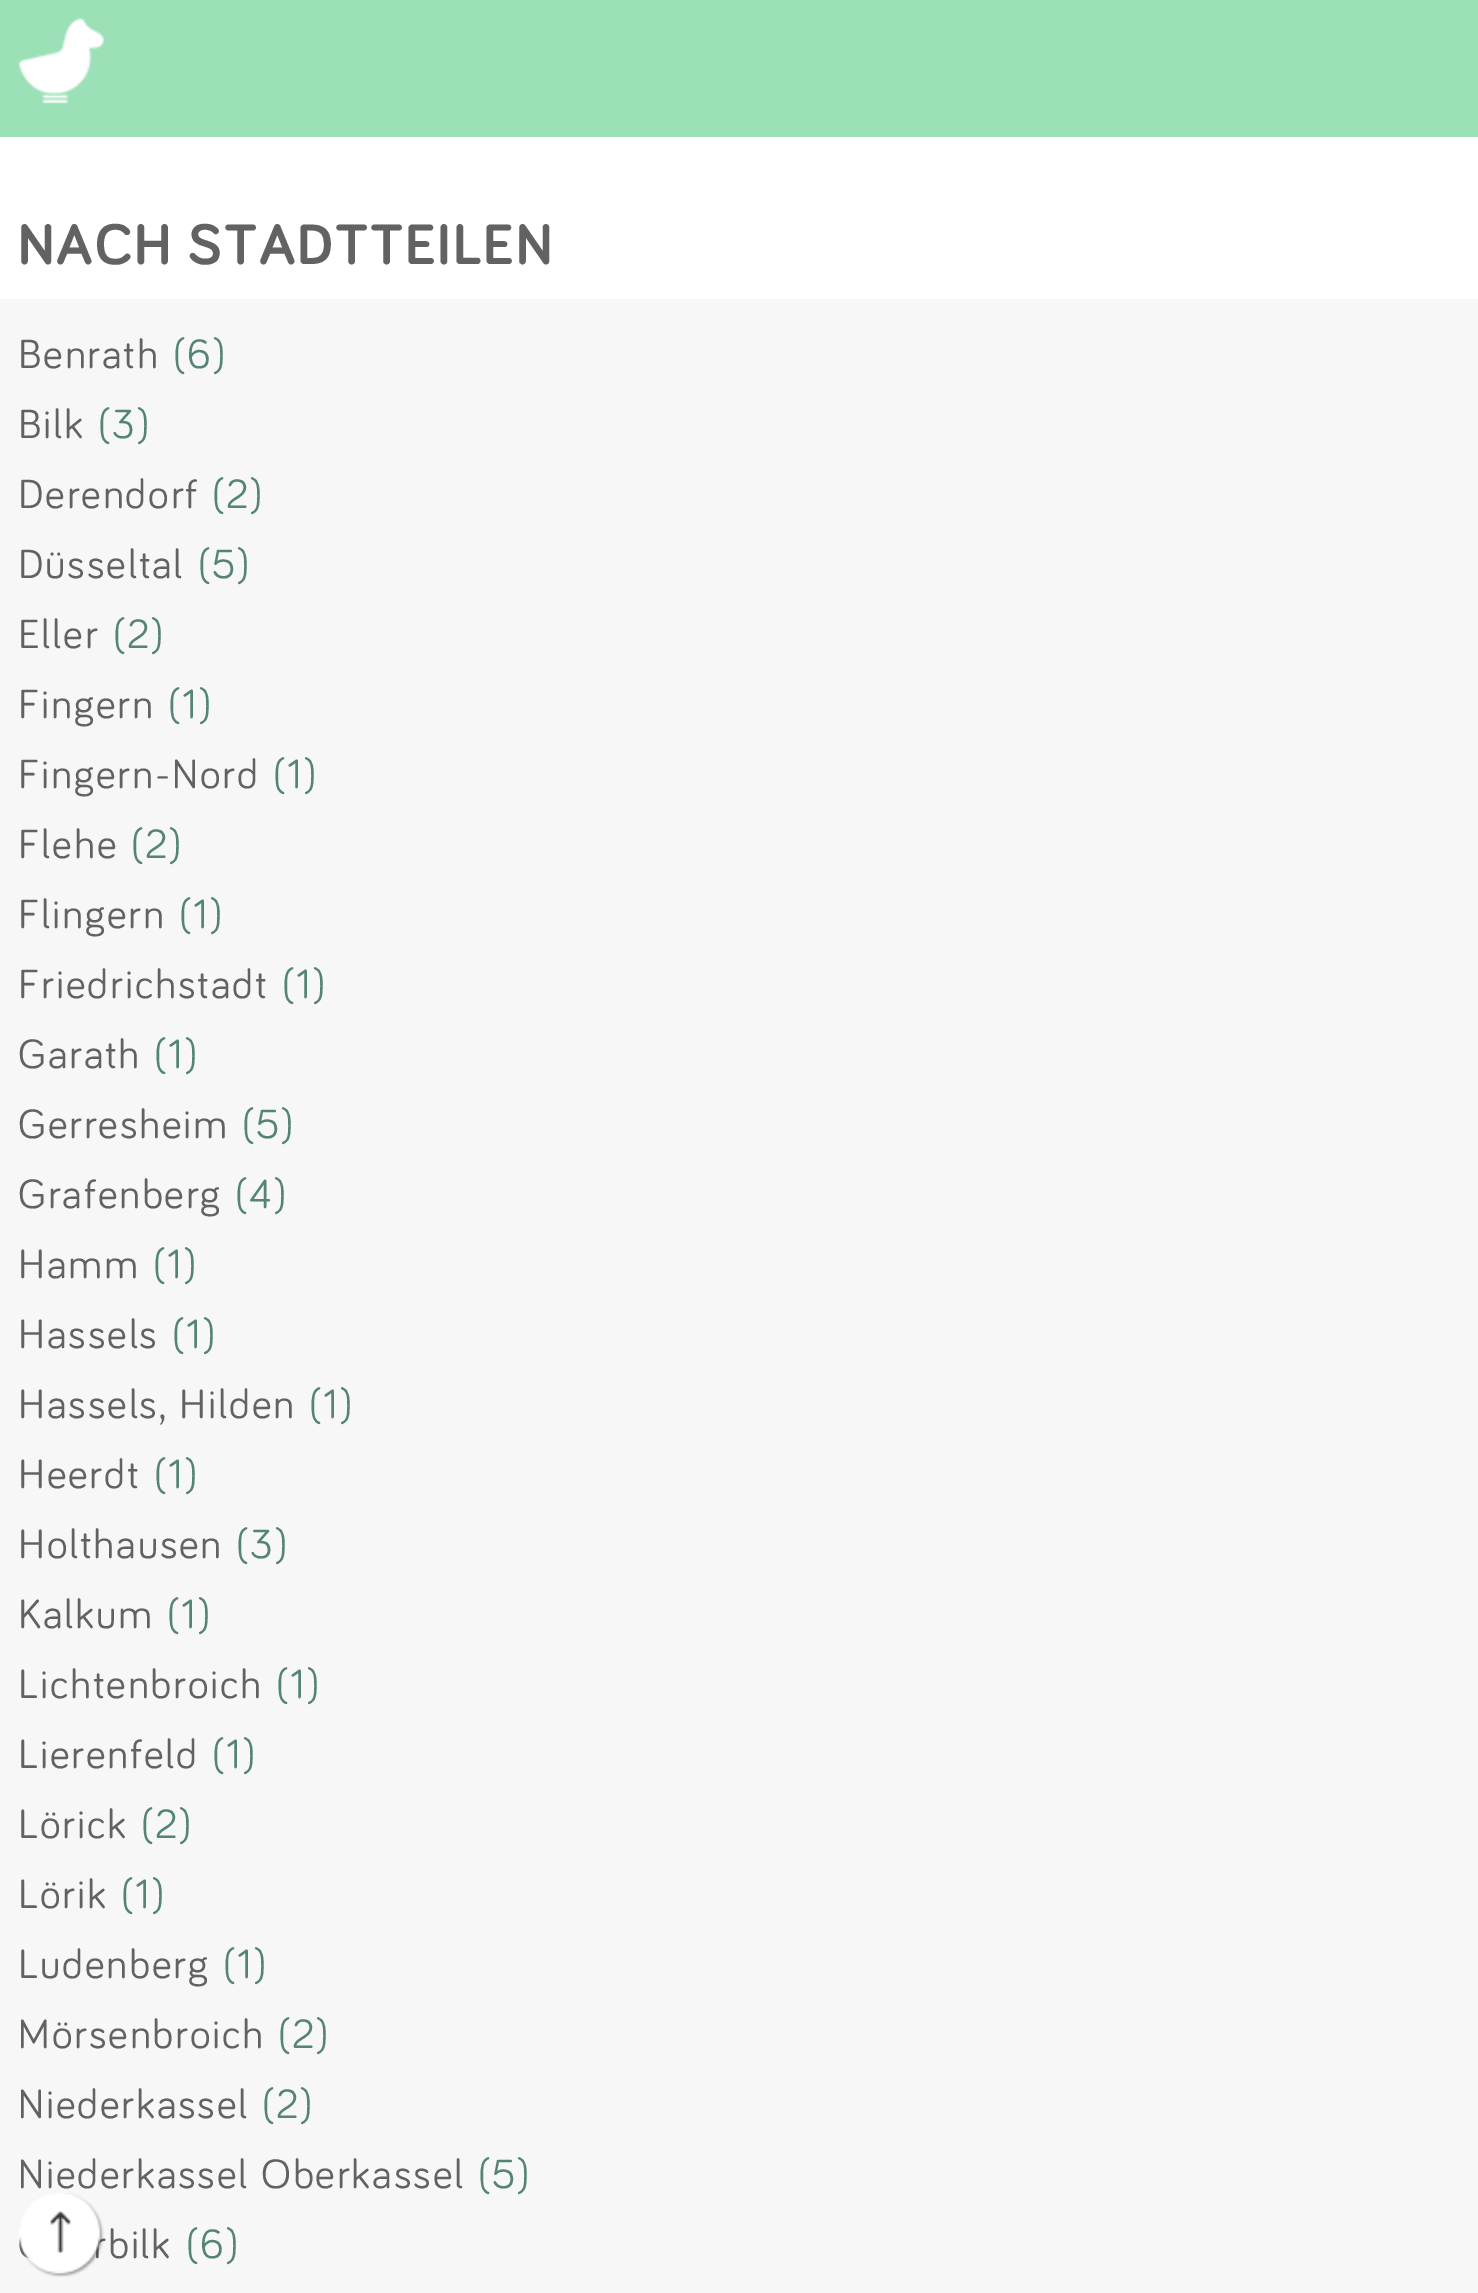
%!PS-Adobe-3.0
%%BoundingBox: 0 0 1478 2293
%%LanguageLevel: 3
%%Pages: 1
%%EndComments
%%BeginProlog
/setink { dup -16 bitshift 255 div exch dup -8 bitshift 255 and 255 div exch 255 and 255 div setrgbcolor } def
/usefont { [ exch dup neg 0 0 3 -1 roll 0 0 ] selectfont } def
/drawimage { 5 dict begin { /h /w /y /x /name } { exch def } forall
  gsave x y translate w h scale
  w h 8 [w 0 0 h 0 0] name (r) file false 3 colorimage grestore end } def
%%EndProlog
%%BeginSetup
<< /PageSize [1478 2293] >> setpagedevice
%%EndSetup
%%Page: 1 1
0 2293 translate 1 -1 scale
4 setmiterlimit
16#FFFFFF setink
0 0 1478 2293 rectfill
16#9CE0B7 setink
0 0 1478 137 rectfill
(img1.raw) 18 18 86 86 drawimage
/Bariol-Bold 58.75 usefont
16#636161 setink
18 264 moveto 1.75 0 (NACH STADTTEILEN) ashow
16#F7F7F7 setink
0 299 1478 1994 rectfill
/Bariol-Regular 42 usefont
16#636161 setink
18 368 moveto 1.75 0 (Benrath) ashow
16#538476 setink
173 368 moveto 1.75 0 (\(6\)) ashow
16#636161 setink
18 438 moveto 1.75 0 (Bilk) ashow
16#538476 setink
98 438 moveto 1.75 0 (\(3\)) ashow
16#636161 setink
18 508 moveto 1.75 0 (Derendorf) ashow
16#538476 setink
212 508 moveto 1.75 0 (\(2\)) ashow
16#636161 setink
18 578 moveto 1.75 0 (Düsseltal) ashow
16#538476 setink
198 578 moveto 1.75 0 (\(5\)) ashow
16#636161 setink
18 648 moveto 1.75 0 (Eller) ashow
16#538476 setink
113 648 moveto 1.75 0 (\(2\)) ashow
16#636161 setink
18 718 moveto 1.75 0 (Fingern) ashow
16#538476 setink
168 718 moveto 1.75 0 (\(1\)) ashow
16#636161 setink
18 788 moveto 1.75 0 (Fingern-Nord) ashow
16#538476 setink
273 788 moveto 1.75 0 (\(1\)) ashow
16#636161 setink
18 858 moveto 1.75 0 (Flehe) ashow
16#538476 setink
131 858 moveto 1.75 0 (\(2\)) ashow
16#636161 setink
18 928 moveto 1.75 0 (Flingern) ashow
16#538476 setink
179 928 moveto 1.75 0 (\(1\)) ashow
16#636161 setink
18 998 moveto 1.75 0 (Friedrichstadt) ashow
16#538476 setink
282 998 moveto 1.75 0 (\(1\)) ashow
16#636161 setink
18 1068 moveto 1.75 0 (Garath) ashow
16#538476 setink
154 1068 moveto 1.75 0 (\(1\)) ashow
16#636161 setink
18 1138 moveto 1.75 0 (Gerresheim) ashow
16#538476 setink
242 1138 moveto 1.75 0 (\(5\)) ashow
16#636161 setink
18 1208 moveto 1.75 0 (Grafenberg) ashow
16#538476 setink
235 1208 moveto 1.75 0 (\(4\)) ashow
16#636161 setink
18 1278 moveto 1.75 0 (Hamm) ashow
16#538476 setink
153 1278 moveto 1.75 0 (\(1\)) ashow
16#636161 setink
18 1348 moveto 1.75 0 (Hassels) ashow
16#538476 setink
172 1348 moveto 1.75 0 (\(1\)) ashow
16#636161 setink
18 1418 moveto 1.75 0 (Hassels, Hilden) ashow
16#538476 setink
309 1418 moveto 1.75 0 (\(1\)) ashow
16#636161 setink
18 1488 moveto 1.75 0 (Heerdt) ashow
16#538476 setink
154 1488 moveto 1.75 0 (\(1\)) ashow
16#636161 setink
18 1558 moveto 1.75 0 (Holthausen) ashow
16#538476 setink
236 1558 moveto 1.75 0 (\(3\)) ashow
16#636161 setink
18 1628 moveto 1.75 0 (Kalkum) ashow
16#538476 setink
167 1628 moveto 1.75 0 (\(1\)) ashow
16#636161 setink
18 1698 moveto 1.75 0 (Lichtenbroich) ashow
16#538476 setink
276 1698 moveto 1.75 0 (\(1\)) ashow
16#636161 setink
18 1768 moveto 1.75 0 (Lierenfeld) ashow
16#538476 setink
212 1768 moveto 1.75 0 (\(1\)) ashow
16#636161 setink
18 1838 moveto 1.75 0 (Lörick) ashow
16#538476 setink
141 1838 moveto 1.75 0 (\(2\)) ashow
16#636161 setink
18 1908 moveto 1.75 0 (Lörik) ashow
16#538476 setink
121 1908 moveto 1.75 0 (\(1\)) ashow
16#636161 setink
18 1978 moveto 1.75 0 (Ludenberg) ashow
16#538476 setink
223 1978 moveto 1.75 0 (\(1\)) ashow
16#636161 setink
18 2048 moveto 1.75 0 (Mörsenbroich) ashow
16#538476 setink
278 2048 moveto 1.75 0 (\(2\)) ashow
16#636161 setink
18 2118 moveto 1.75 0 (Niederkassel) ashow
16#538476 setink
262 2118 moveto 1.75 0 (\(2\)) ashow
16#636161 setink
18 2188 moveto 1.75 0 (Niederkassel Oberkassel) ashow
16#538476 setink
478 2188 moveto 1.75 0 (\(5\)) ashow
16#636161 setink
93 2258 moveto 1.75 0 (rbilk) ashow
16#538476 setink
186 2258 moveto 1.75 0 (\(6\)) ashow
(img2.raw) 19 2193 85 84 drawimage
showpage
%%EOF
